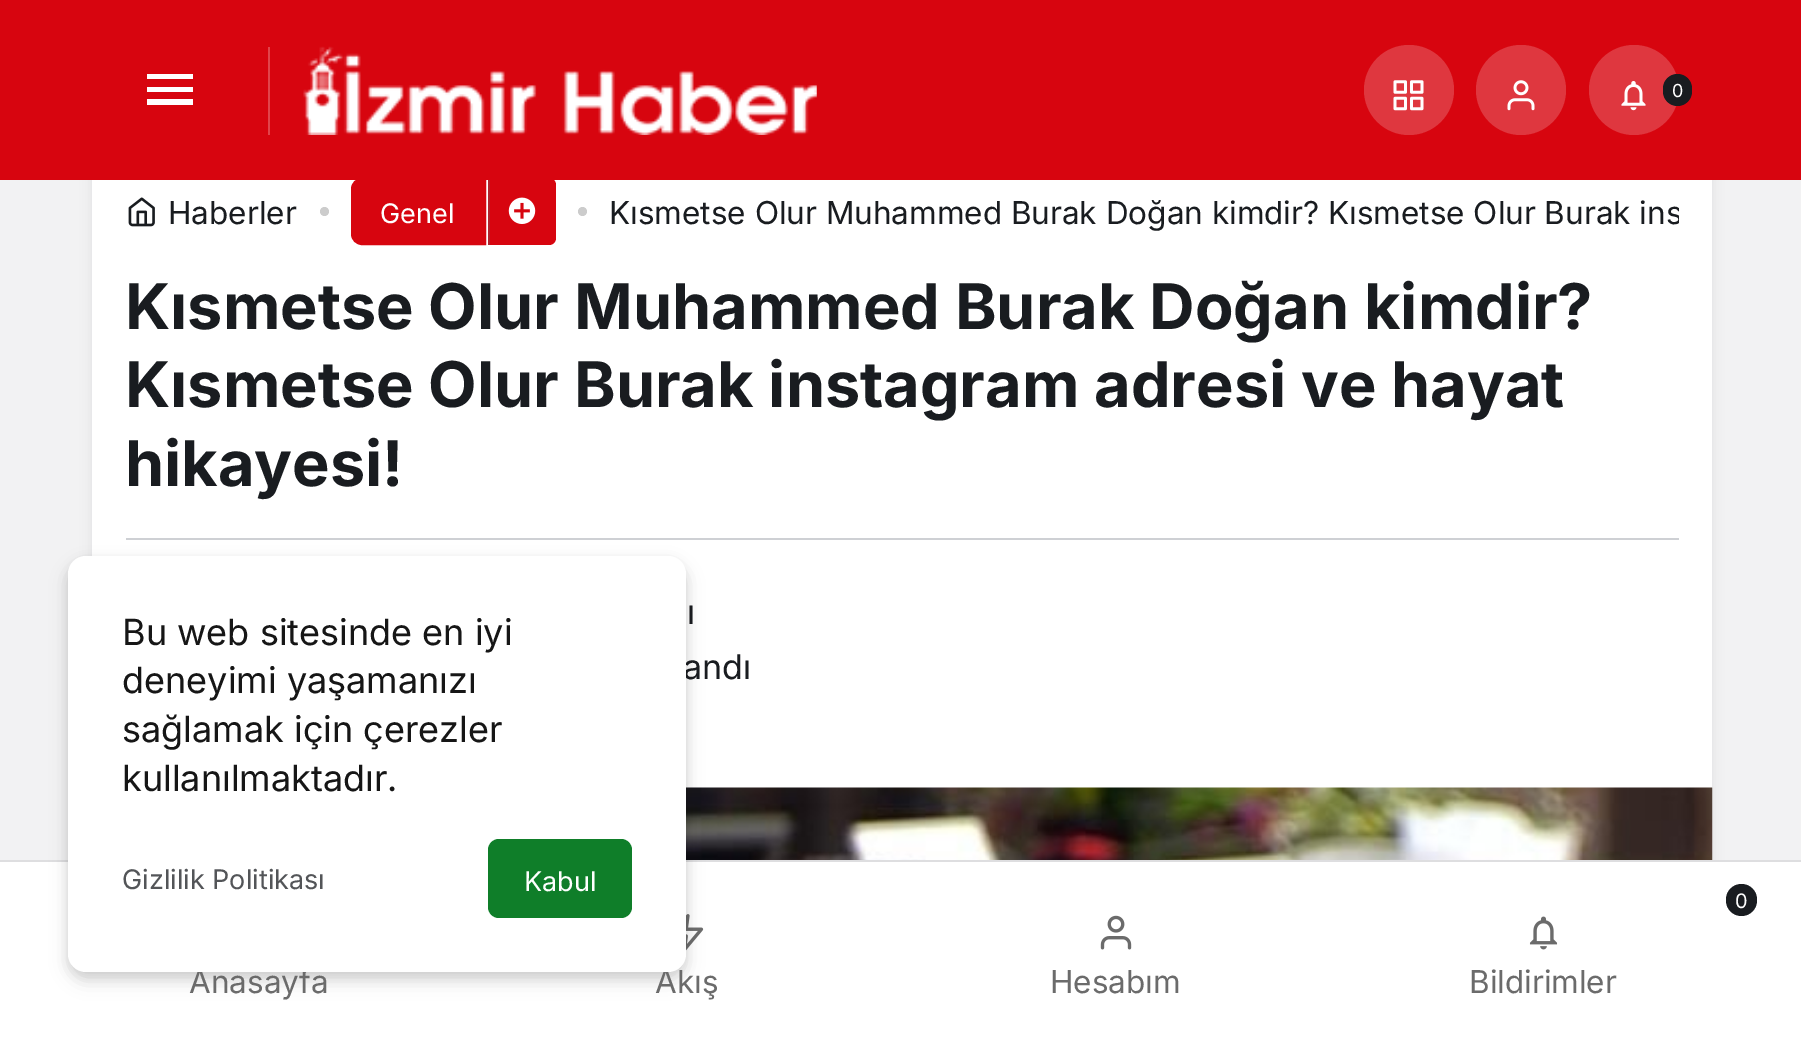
%!PS-Adobe-3.0
%%BoundingBox: 0 0 1801 1039
%%LanguageLevel: 3
%%Pages: 1
%%EndComments
%%BeginProlog
/setink { dup -16 bitshift 255 div exch dup -8 bitshift 255 and 255 div exch 255 and 255 div setrgbcolor } def
/usefont { [ exch dup neg 0 0 3 -1 roll 0 0 ] selectfont } def
/setalpha { dup .setfillconstantalpha .setstrokeconstantalpha } def
/disc { newpath 0 360 arc closepath } def
/rrect { 5 dict begin { /r /h /w /y /x } { exch def } forall
  x r add y moveto x w add y 2 copy h add r arct x w add y h add x 1 index r arct
  x y h add x y r arct x y 2 copy exch w add exch r arct closepath end } def
/softshadow { 12 dict begin { /a /b /q /h /w /y /x } { exch def } forall gsave /was 0 def
  9 -2 -9 { dup b mul 4 div /e exch def 1 sub .425 mul 2.718 exch exp 1 add a .99 .min exch div /now exch def
    1 1 now sub 1 was sub div sub setalpha /was now def
    w h .min e 2 mul add 0 gt { x e sub y e sub w e 2 mul add h e 2 mul add
      q e add b .6 mul add w h .min 2 div e add .min 0 .max rrect fill } if } for grestore end } def
/drawimage { 5 dict begin { /h /w /y /x /name } { exch def } forall
  gsave x y translate w h scale
  w h 8 [w 0 0 h 0 0] name (r) file false 3 colorimage grestore end } def
%%EndProlog
%%BeginSetup
<< /PageSize [1801 1039] /PageUsesTransparency true >> setpagedevice
%%EndSetup
%%Page: 1 1
0 .pushpdf14devicefilter
0 1039 translate 1 -1 scale
4 setmiterlimit
16#F2F2F3 setink
0 0 1801 1039 rectfill
16#32353D setink
92 144 1620 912 0 5.5 0.1 softshadow
16#FFFFFF setink
92 180 1620 608 rectfill
16#D7050F setink
362 179 moveto 485 179 lineto 485 244 lineto 362 244 lineto 356.5 244 352 239.5 352 234 curveto 352 189 lineto 352 183.5 356.5 179 362 179 curveto closepath gsave fill grestore
2 setlinewidth
stroke
488 178 moveto 549 178 lineto 553 178 556 181 556 185 curveto 556 238 lineto 556 242 553 245 549 245 curveto 488 245 lineto closepath fill
16#B2212C setink
488 178 2 67 rectfill
16#D7050F setink
0 0 1801 180 rectfill
16#FFFFFF setink
147 74 moveto 193 74 lineto 193 79 lineto 147 79 lineto closepath 147 92 moveto 147 87 lineto 193 87 lineto 193 92 lineto closepath 147 105 moveto 147 99 lineto 193 99 lineto 193 105 lineto closepath fill
16#E1444B setink
268 47 2 88 rectfill
(img1.raw) 303 46 514 89 drawimage
16#DF373F setink
1409 90 45 disc fill
(img2.raw) 1393 80 31 31 drawimage
1521 90 45 disc fill
(img3.raw) 1507 80 28 31 drawimage
1634 90 45 disc fill
(img4.raw) 1621 81 25 30 drawimage
16#191C20 setink
1663 74 29 32 14.5 rrect fill
/Inter-Regular 18 usefont
16#FFFFFF setink
1672 97 moveto (0) show
(img5.raw) 128 197 27 30 drawimage
/Inter-Regular 31.5 usefont
16#191C20 setink
168 224 moveto (Haberler) show
16#CCCCCC setink
324.5 211.5 4.5 disc fill
/Inter-Regular 27 usefont
16#FFFFFF setink
380 223 moveto (Genel) show
(img6.raw) 508 197 28 27 drawimage
16#CCCCCC setink
582.5 211.5 4.5 disc fill
gsave
126 178 1553 90 rectclip
/Inter-Regular 31.5 usefont
16#191C20 setink
609 224 moveto (Kısmetse Olur Muhammed Burak Doğan kimdir? Kısmetse Olur Burak ins) show
grestore
/Inter-Bold 63 usefont
16#191C20 setink
[
    [(Kısmetse Olur Muhammed Burak Doğan kimdir?) 125 329]
    [(Kısmetse Olur Burak instagram adresi ve hayat) 125 407]
    [(hikayesi!) 125 486]
] { aload pop moveto show } forall
16#CED0D4 setink
126 538 1553 2 rectfill
/Inter-Regular 34 usefont
16#191C20 setink
687 624 moveto (ı) show
683 679 moveto (andı) show
(img7.raw) 686 787 1027 73 drawimage
16#FFFFFF setink
0 862 1801 177 rectfill
16#DEDEE0 setink
0 860 1801 2 rectfill
(img8.raw) 686 914 18 37 drawimage
16#000000 setink
68 560 618 417 18 4.5 0.08 softshadow
68 565 618 416 18 9 0.12 softshadow
/Inter-Regular 31.5 usefont
16#6B6B6B setink
189 993 moveto (Anasayfa) show
655 993 moveto (Akış) show
16#FFFFFF setink
68 556 618 416 18 rrect fill
/Inter-Regular 36 usefont
16#161616 setink
[
    [(Bu web sitesinde en iyi) 122 645]
    [(deneyimi yaşamanızı) 122 693]
    [(sağlamak için çerezler) 122 742]
    [(kullanılmaktadır.) 122 791]
] { aload pop moveto show } forall
/Inter-Regular 27 usefont
16#535558 setink
122 889 moveto (Gizlilik Politikası) show
16#0F7E29 setink
488 839 144 79 11 rrect fill
16#FFFFFF setink
524 891 moveto (Kabul) show
(img9.raw) 1100 915 32 35 drawimage
/Inter-Regular 31.5 usefont
16#6B6B6B setink
1050 993 moveto (Hesabım) show
16#191C20 setink
1726 884 31 32 15.5 rrect fill
/Inter-Regular 20 usefont
16#FFFFFF setink
1735 908 moveto (0) show
(img10.raw) 1529 916 29 34 drawimage
/Inter-Regular 31.5 usefont
16#6B6B6B setink
1469 993 moveto (Bildirimler) show
.poppdf14devicefilter showpage
%%EOF
